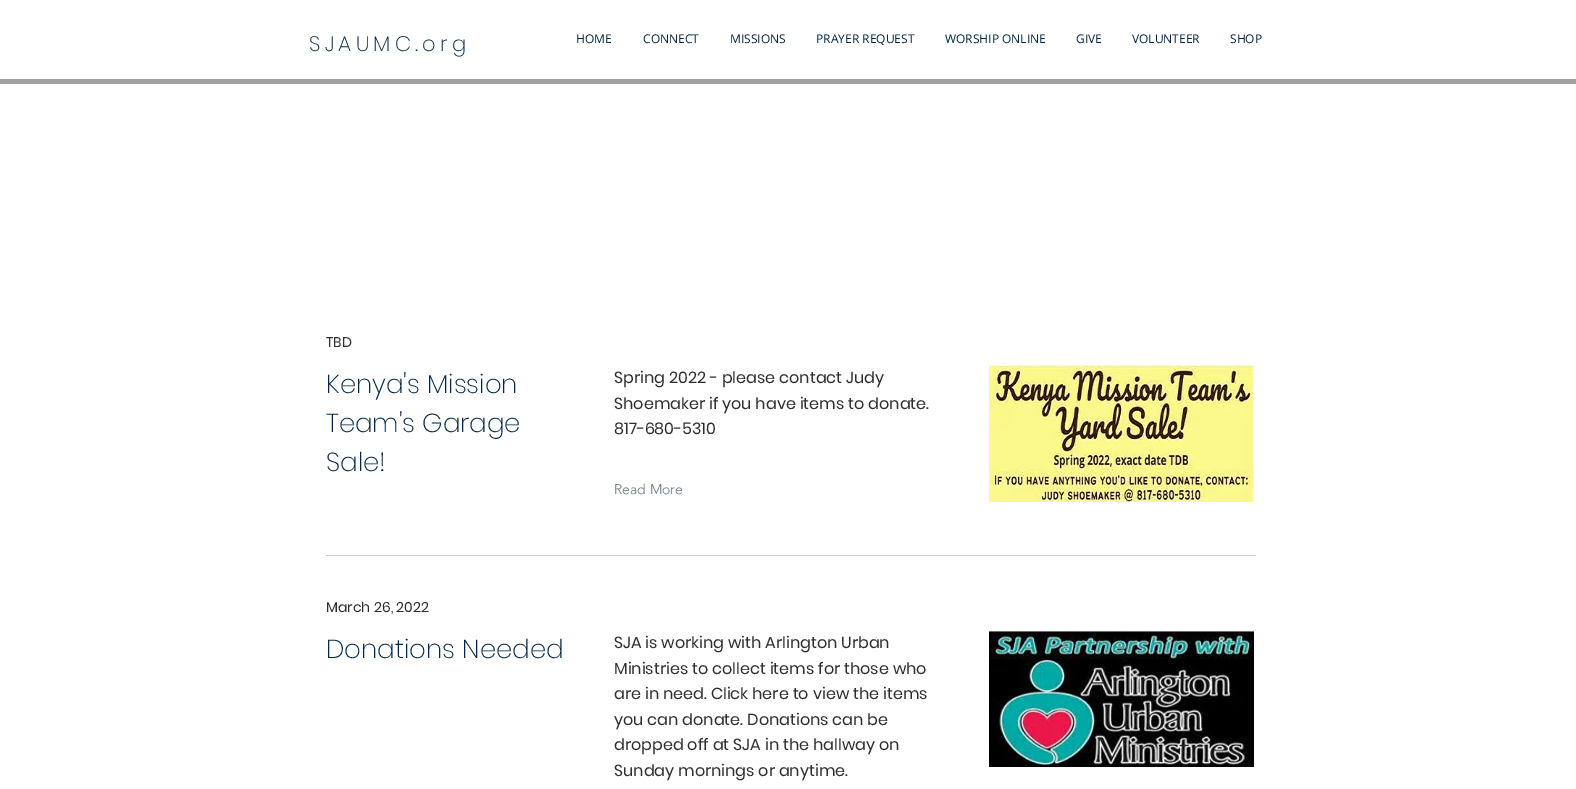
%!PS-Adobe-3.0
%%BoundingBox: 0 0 1576 789
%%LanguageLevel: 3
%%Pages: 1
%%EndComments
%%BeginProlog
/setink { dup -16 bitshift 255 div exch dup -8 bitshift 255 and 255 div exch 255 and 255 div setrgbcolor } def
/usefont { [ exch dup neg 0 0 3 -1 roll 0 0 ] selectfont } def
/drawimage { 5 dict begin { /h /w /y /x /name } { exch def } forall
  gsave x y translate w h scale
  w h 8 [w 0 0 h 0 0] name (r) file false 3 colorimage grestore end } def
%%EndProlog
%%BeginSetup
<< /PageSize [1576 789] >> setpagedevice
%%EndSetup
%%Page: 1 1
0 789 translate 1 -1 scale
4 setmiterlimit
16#FFFFFF setink
0 0 1576 789 rectfill
/Poppins-ExtraLight 21 usefont
16#012646 setink
309 51 moveto 4.25 0 (SJAUMC.org) ashow
/OpenSans-Regular 12 usefont
[
    [(HOME) 576 43]
    [(CONNECT) 643 43]
    [(MISSIONS) 730 43]
    [(PRAYER REQUEST) 816 43]
    [(WORSHIP ONLINE) 945 43]
    [(GIVE) 1076 43]
    [(VOLUNTEER) 1132 43]
    [(SHOP) 1230 43]
] { aload pop moveto show } forall
16#A0A09F setink
0 79 1576 5 rectfill
/Poppins-Regular 14 usefont
16#2F2E2E setink
326 347 moveto (TBD) show
/Poppins-ExtraLight 26 usefont
16#012646 setink
[
    [(Kenya's Mission) 326 393]
    [(Team's Garage) 326 432]
    [(Sale!) 326 471]
] { aload pop moveto show } forall
/Poppins-Regular 16 usefont
16#2F2E2E setink
[
    [(Spring 2022 - please contact Judy) 614 383]
    [(Shoemaker if you have items to donate.) 614 409]
    [(817-680-5310) 614 434]
] { aload pop moveto show } forall
(img1.raw) 989 365 265 137 drawimage
/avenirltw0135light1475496-Light 14 usefont
16#63787E setink
614 494 moveto (Read More) show
16#CCCCCC setink
326 555 930 1 rectfill
/Poppins-Regular 14 usefont
16#2F2E2E setink
326 612 moveto (March 26, 2022) show
/Poppins-ExtraLight 26 usefont
16#012646 setink
326 658 moveto (Donations Needed) show
/Poppins-Regular 16 usefont
16#2F2E2E setink
[
    [(SJA is working with Arlington Urban) 614 648]
    [(Ministries to collect items for those who) 614 674]
    [(are in need. Click here to view the items) 614 699]
    [(you can donate. Donations can be) 614 725]
    [(dropped off at SJA in the hallway on) 614 750]
    [(Sunday mornings or anytime.) 614 776]
] { aload pop moveto show } forall
(img2.raw) 989 630 265 137 drawimage
showpage
%%EOF
